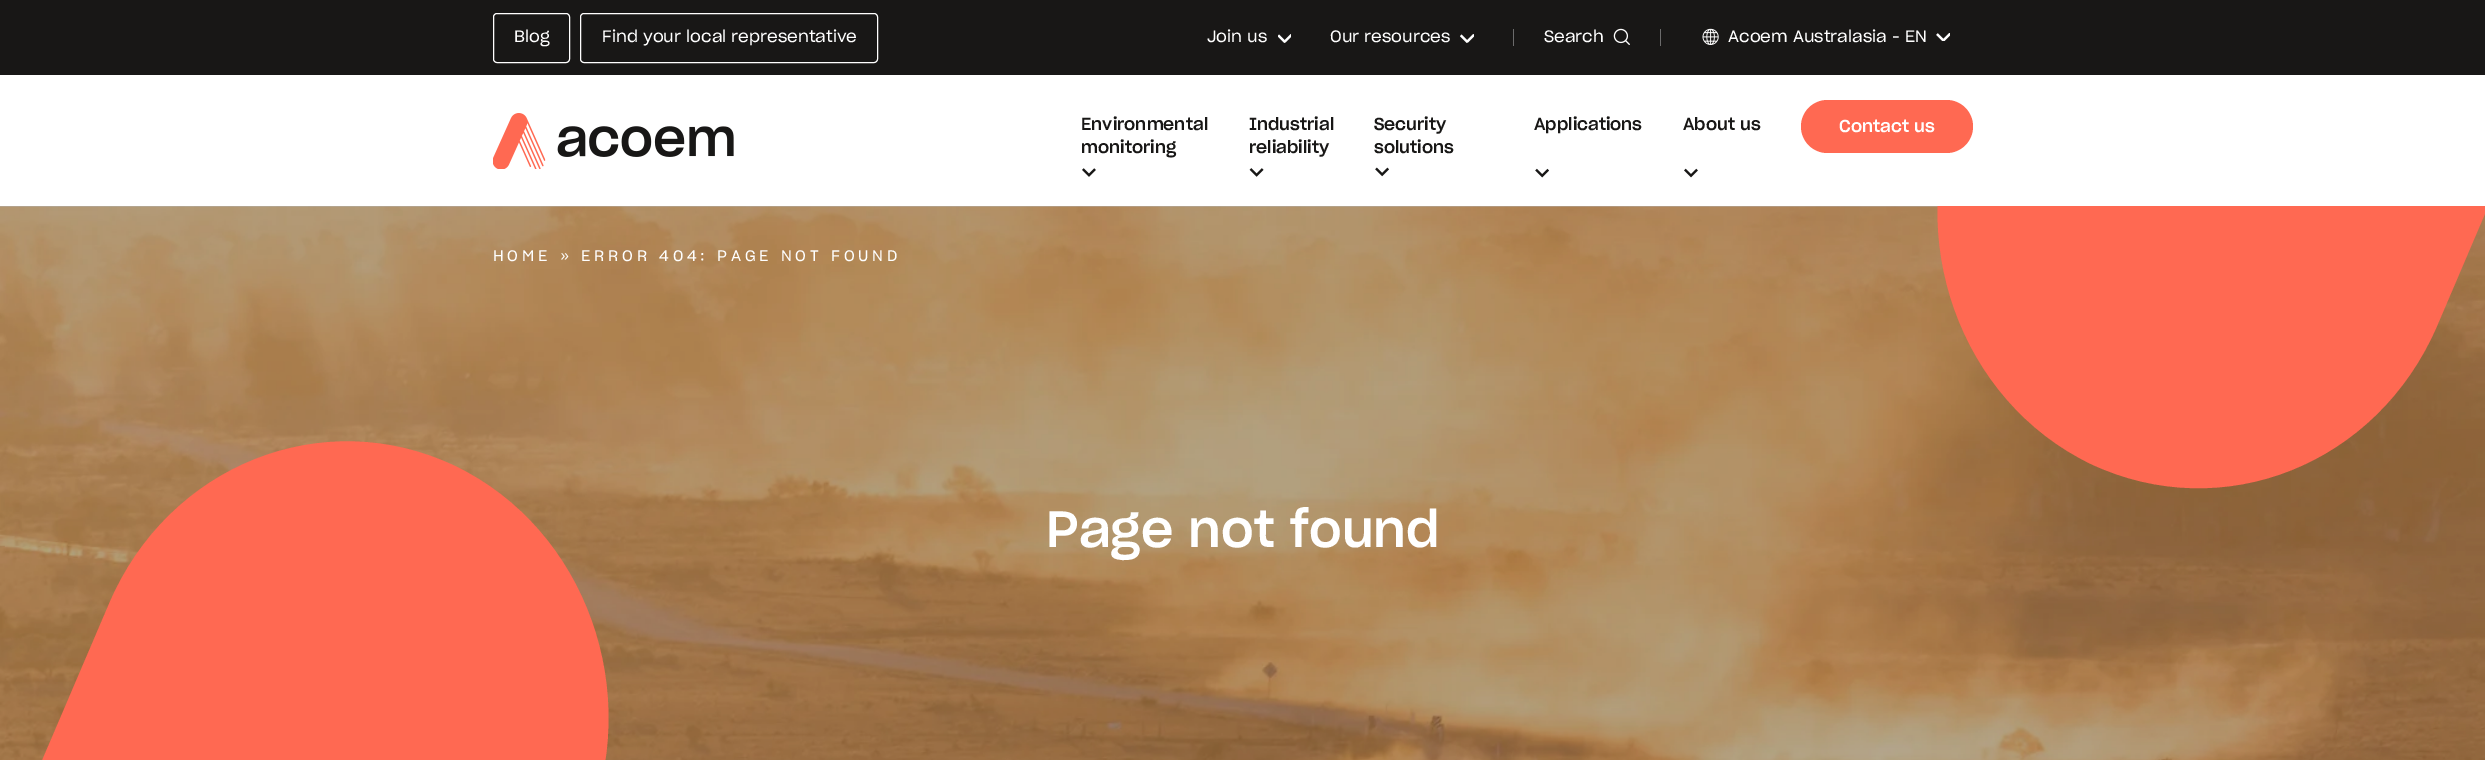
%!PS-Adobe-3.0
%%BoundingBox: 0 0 2485 760
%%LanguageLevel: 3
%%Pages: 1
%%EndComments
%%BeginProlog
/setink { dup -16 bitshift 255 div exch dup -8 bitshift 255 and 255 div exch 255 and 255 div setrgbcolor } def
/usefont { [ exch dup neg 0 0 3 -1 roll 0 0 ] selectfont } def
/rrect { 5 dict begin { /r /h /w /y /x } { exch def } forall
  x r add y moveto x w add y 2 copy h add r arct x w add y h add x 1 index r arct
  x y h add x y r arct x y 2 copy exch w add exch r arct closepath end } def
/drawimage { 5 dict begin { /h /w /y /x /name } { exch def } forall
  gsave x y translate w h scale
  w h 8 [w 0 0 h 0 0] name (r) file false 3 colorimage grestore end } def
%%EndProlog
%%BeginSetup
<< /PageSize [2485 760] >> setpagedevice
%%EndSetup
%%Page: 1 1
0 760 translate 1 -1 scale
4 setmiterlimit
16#FFFFFF setink
0 0 2485 760 rectfill
16#B3B3B3 setink
0 206 1938 1 rectfill
16#181716 setink
0 0 2485 75 rectfill
16#FFFFFF setink
493.5 13.5 76 49 3.5 rrect stroke
/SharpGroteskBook-Regular 16.25 usefont
514 42 moveto (Blog) show
580.5 13.5 297 49 3.5 rrect stroke
602 42 moveto (Find your local representative) show
1207 42 moveto (Join us) show
(img1.raw) 1278 34 13 9 drawimage
1330 42 moveto (Our resources) show
(img2.raw) 1460 34 14 9 drawimage
16#6B6B6B setink
1660 29 1 17 rectfill
1513 29 1 17 rectfill
16#FFFFFF setink
1544 42 moveto (Search) show
(img3.raw) 1613 28 17 17 drawimage
(img4.raw) 1702 28 17 17 drawimage
1728 42 moveto (Acoem Australasia - EN) show
(img5.raw) 1936 33 14 8 drawimage
(img6.raw) 493 113 241 56 drawimage
/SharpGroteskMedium-Medium 17 usefont
16#181716 setink
1081 130 moveto (Environmental) show
1081 153 moveto (monitoring) show
(img7.raw) 1082 168 14 9 drawimage
1249 130 moveto (Industrial) show
1249 153 moveto (reliability) show
(img8.raw) 1249 168 15 9 drawimage
1374 130 moveto (Security) show
1374 153 moveto (solutions) show
(img9.raw) 1375 167 14 10 drawimage
1534 130 moveto (Applications) show
(img10.raw) 1535 168 14 10 drawimage
1683 130 moveto (About us) show
(img11.raw) 1684 168 14 10 drawimage
16#FF6952 setink
1801 100 172 53 26.5 rrect fill
16#FFFFFF setink
1839 132 moveto (Contact us) show
(img12.raw) 0 206 2485 554 drawimage
16#FF6952 setink
-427 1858 moveto 109 604 lineto 168 465 323 403 455 466 curveto 586 529 645 693 585 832 curveto 50 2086 lineto -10 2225 -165 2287 -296 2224 curveto -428 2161 -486 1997 -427 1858 curveto closepath fill
gsave
0 206 2485 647 rectclip
1961 98 moveto 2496 -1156 lineto 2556 -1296 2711 -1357 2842 -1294 curveto 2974 -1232 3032 -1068 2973 -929 curveto 2437 326 lineto 2377 465 2223 526 2091 464 curveto 1960 401 1901 237 1961 98 curveto closepath fill
grestore
/SharpGroteskBook-Regular 15 usefont
16#FFFFFF setink
493 261 moveto 3.75 0 (HOME » ERROR 404: PAGE NOT FOUND) ashow
/SharpGroteskMedium-Medium 50 usefont
1046 547 moveto (Page not found) show
showpage
%%EOF
